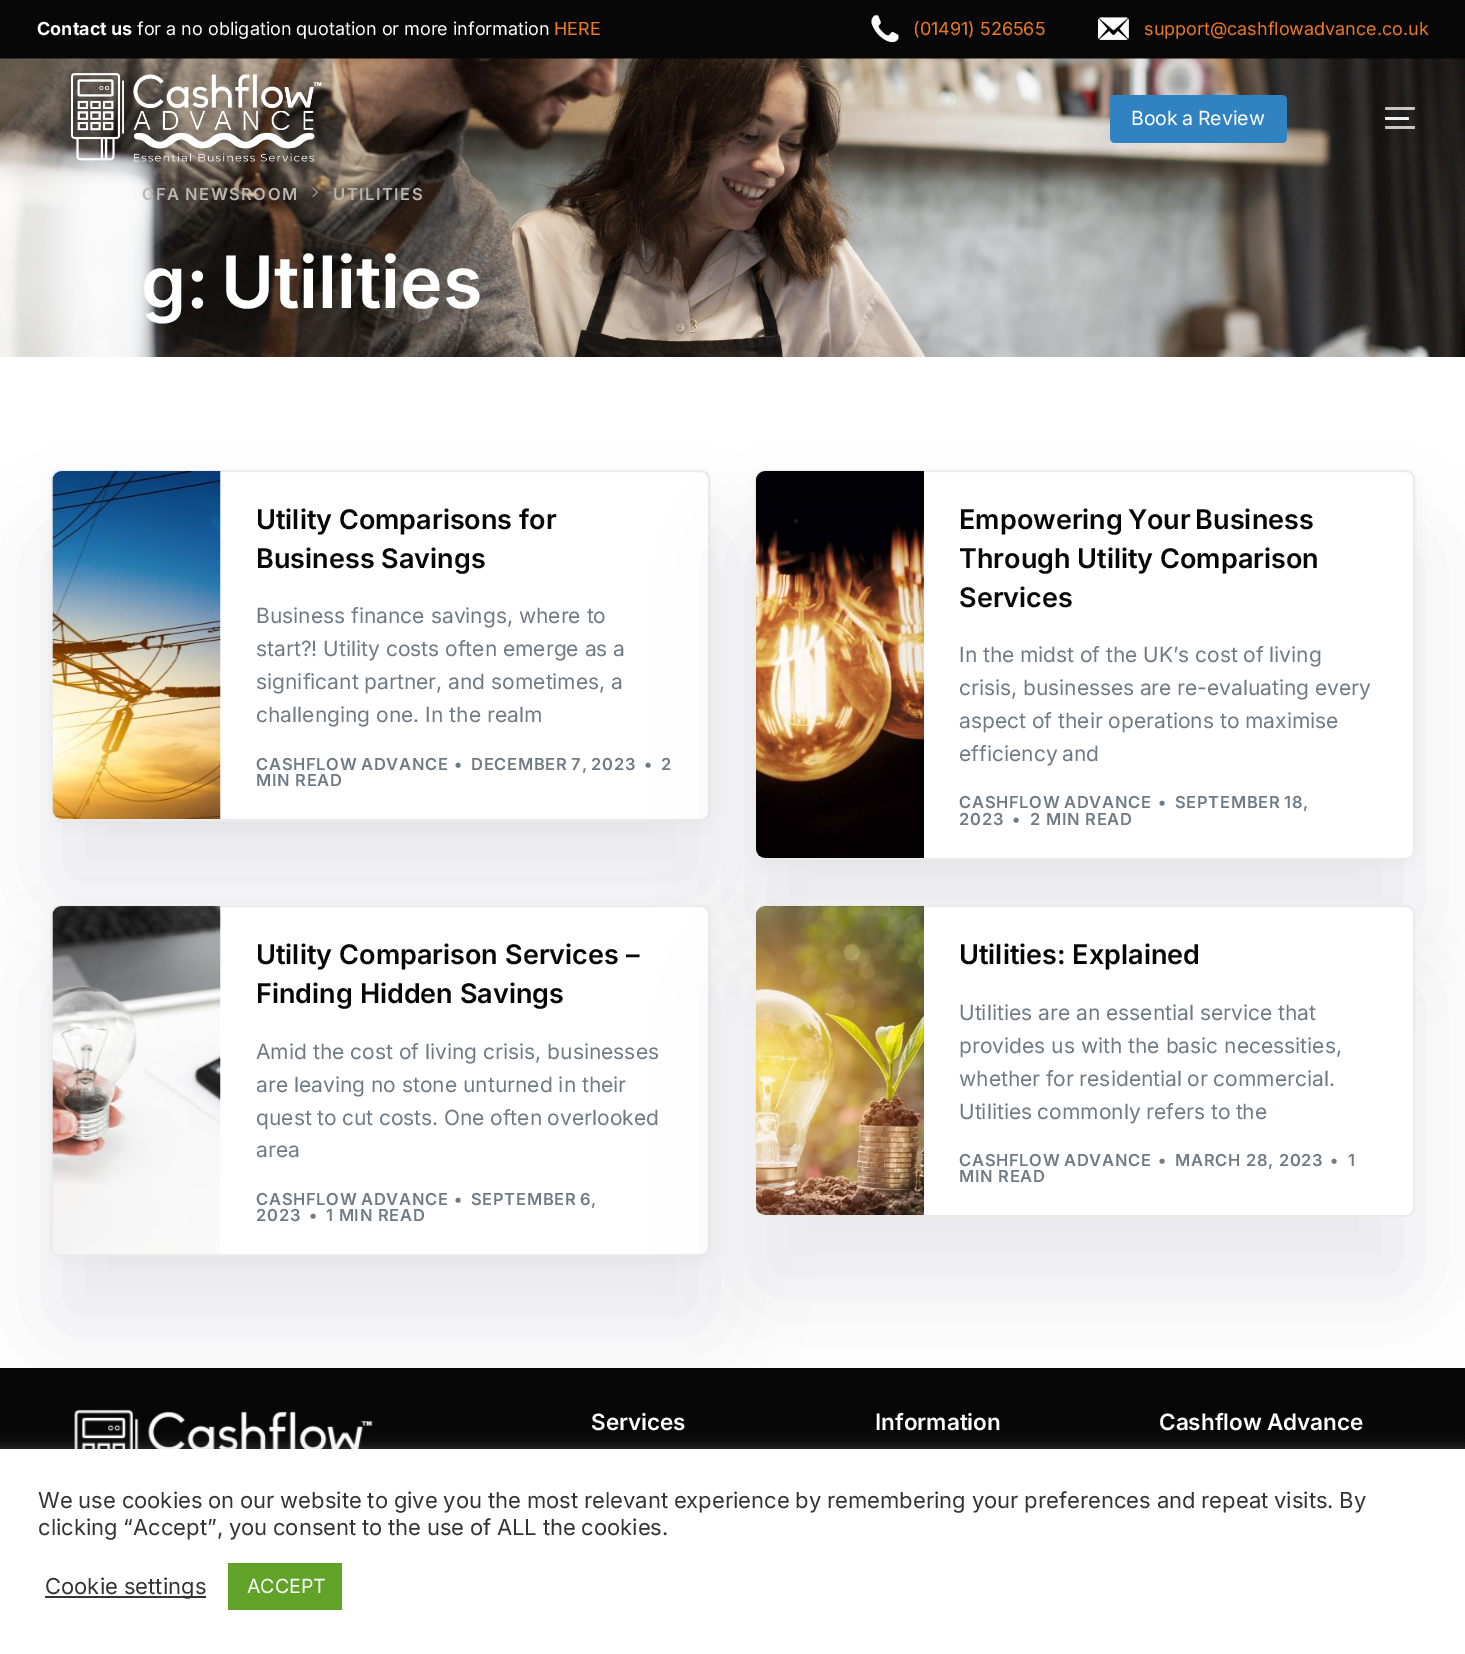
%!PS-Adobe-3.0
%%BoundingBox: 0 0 1465 1654
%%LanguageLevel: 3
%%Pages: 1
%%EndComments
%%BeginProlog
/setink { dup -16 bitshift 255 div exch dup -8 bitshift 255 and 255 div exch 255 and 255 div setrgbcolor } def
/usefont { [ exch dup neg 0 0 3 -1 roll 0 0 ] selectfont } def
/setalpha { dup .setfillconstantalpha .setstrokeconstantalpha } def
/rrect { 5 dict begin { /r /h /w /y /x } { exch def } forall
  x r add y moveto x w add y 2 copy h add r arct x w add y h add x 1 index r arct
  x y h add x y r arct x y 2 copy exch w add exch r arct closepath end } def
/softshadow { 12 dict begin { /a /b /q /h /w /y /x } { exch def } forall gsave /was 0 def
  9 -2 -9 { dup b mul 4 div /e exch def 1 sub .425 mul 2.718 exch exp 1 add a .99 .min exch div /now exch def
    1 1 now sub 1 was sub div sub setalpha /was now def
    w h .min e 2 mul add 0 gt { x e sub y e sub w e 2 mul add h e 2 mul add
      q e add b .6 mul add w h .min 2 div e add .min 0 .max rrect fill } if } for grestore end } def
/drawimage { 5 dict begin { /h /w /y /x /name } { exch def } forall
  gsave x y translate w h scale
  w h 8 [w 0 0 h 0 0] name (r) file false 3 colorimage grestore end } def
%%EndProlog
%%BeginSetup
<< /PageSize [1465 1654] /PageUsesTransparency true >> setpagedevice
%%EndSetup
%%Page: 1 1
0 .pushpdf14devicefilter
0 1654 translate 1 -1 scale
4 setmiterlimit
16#FFFFFF setink
0 0 1465 1654 rectfill
16#070707 setink
0 0 1465 59 rectfill
/Inter-Bold 18 usefont
16#FFFFFF setink
37 35 moveto (Contact us) show
/Inter-Regular 18 usefont
137 35 moveto (for a no obligation quotation or more information) show
16#EB7924 setink
554 35 moveto (HERE) show
(img1.raw) 871 15 28 28 drawimage
913 35 moveto (\(01491\) 526565) show
(img2.raw) 1098 17 31 23 drawimage
1144 35 moveto (support@cashflowadvance.co.uk) show
(img4.raw) 0 58 1465 299 drawimage
(img3.raw) 71 73 251 89 drawimage
16#3082C1 setink
1110 95 177 48 5 rrect fill
/Inter-Regular 19.5 usefont
16#FFFFFF setink
1131 125 moveto -1 0 32 (Book a Review) widthshow
0.75 setalpha
1385 107 30 3 1.5 rrect fill
1385 117 24 3 1.5 rrect fill
1385 117 24 3 1.5 rrect fill
1385 126 30 3 1.5 rrect fill
/Inter-SemiBold 16.5 usefont
1 setalpha
16#BAB6B2 setink
142 200 moveto -1 0 32 1.5 0 (CFA NEWSROOM) awidthshow
(img5.raw) 312 187 6 11 drawimage
333 200 moveto 1.5 0 (UTILITIES) ashow
/Inter-SemiBold 72 usefont
16#FFFFFF setink
141 308 moveto (g:) show
221 308 moveto (Utilities) show
16#110C2E setink
51 542 659 351 9 45 0.08 softshadow
16#000000 setink
51 476 659 351 9 9 0.04 softshadow
16#FFFFFF setink
52 471 657 349 8 rrect gsave fill grestore
16#EBEBEB setink
2 setlinewidth
stroke
(img6.raw) 52 471 169 348 drawimage
/Inter-SemiBold 27 usefont
16#070707 setink
256 529 moveto (Utility Comparisons for) show
256 568 moveto (Business Savings) show
/Inter-Regular 21 usefont
16#6E7A84 setink
[
    [(Business finance savings, where to) 256 623]
    [(start?! Utility costs often emerge as a) 256 656]
    [(significant partner, and sometimes, a) 256 689]
    [(challenging one. In the realm) 256 722]
] { aload pop moveto show } forall
/Inter-SemiBold 16.5 usefont
256 770 moveto -1 0 32 0.7 0 (CASHFLOW ADVANCE) awidthshow
454 770 moveto 0.7 0 (•) ashow
471 770 moveto -1 0 32 0.7 0 (DECEMBER 7, 2023) awidthshow
644 770 moveto 0.7 0 (•) ashow
661 770 moveto 0.7 0 (2) ashow
256 786 moveto 0.7 0 (MIN READ) ashow
16#110C2E setink
755 542 660 390 9 45 0.08 softshadow
16#000000 setink
755 476 660 390 9 9 0.04 softshadow
16#FFFFFF setink
756 471 658 388 8 rrect gsave fill grestore
16#EBEBEB setink
stroke
(img7.raw) 756 471 168 387 drawimage
/Inter-SemiBold 27 usefont
16#070707 setink
959 529 moveto -2 0 32 (Empowering Your Business) widthshow
959 568 moveto (Through Utility Comparison) show
959 607 moveto (Services) show
/Inter-Regular 21 usefont
16#6E7A84 setink
959 662 moveto -0.25 0 32 (In the midst of the UK’s cost of living) widthshow
959 695 moveto -0.5 0 32 (crisis, businesses are re-evaluating every) widthshow
959 728 moveto (aspect of their operations to maximise) show
959 761 moveto -1 0 32 (efficiency and) widthshow
/Inter-SemiBold 16.5 usefont
959 808 moveto -1 0 32 0.7 0 (CASHFLOW ADVANCE) awidthshow
1158 808 moveto 0.7 0 (•) ashow
1175 808 moveto -1 0 32 0.7 0 (SEPTEMBER 18,) awidthshow
959 825 moveto 0.7 0 (2023) ashow
1012 825 moveto 0.7 0 (•) ashow
1030 825 moveto 0.7 0 (2 MIN READ) ashow
16#110C2E setink
51 977 659 351 9 45 0.08 softshadow
16#000000 setink
51 911 659 351 9 9 0.04 softshadow
16#FFFFFF setink
52 906 657 349 8 rrect gsave fill grestore
16#EBEBEB setink
stroke
(img8.raw) 52 906 169 348 drawimage
/Inter-SemiBold 27 usefont
16#070707 setink
256 964 moveto 0.5 0 32 (Utility Comparison Services –) widthshow
256 1003 moveto (Finding Hidden Savings) show
/Inter-Regular 21 usefont
16#6E7A84 setink
256 1059 moveto (Amid the cost of living crisis, businesses) show
256 1092 moveto (are leaving no stone unturned in their) show
256 1125 moveto -0.4 0 32 (quest to cut costs. One often overlooked) widthshow
256 1157 moveto (area) show
/Inter-SemiBold 16.5 usefont
256 1205 moveto -1 0 32 0.7 0 (CASHFLOW ADVANCE) awidthshow
454 1205 moveto 0.7 0 (•) ashow
471 1205 moveto -1 0 32 0.7 0 (SEPTEMBER 6,) awidthshow
256 1221 moveto 0.7 0 (2023) ashow
309 1221 moveto 0.7 0 (•) ashow
326 1221 moveto 0.7 0 (1 MIN READ) ashow
16#110C2E setink
755 977 660 312 9 45 0.08 softshadow
16#FFFFFF setink
756 906 658 310 8 rrect gsave fill grestore
16#EBEBEB setink
stroke
(img9.raw) 756 906 168 309 drawimage
/Inter-SemiBold 27 usefont
16#070707 setink
959 964 moveto (Utilities: Explained) show
/Inter-Regular 21 usefont
16#6E7A84 setink
959 1020 moveto (Utilities are an essential service that) show
959 1053 moveto (provides us with the basic necessities,) show
959 1086 moveto -0.5 0 32 (whether for residential or commercial.) widthshow
959 1119 moveto -0.5 0 32 (Utilities commonly refers to the) widthshow
/Inter-SemiBold 16.5 usefont
959 1166 moveto -1 0 32 0.7 0 (CASHFLOW ADVANCE) awidthshow
1158 1166 moveto 0.7 0 (•) ashow
1175 1166 moveto 0.7 0 (MARCH 28, 2023) ashow
1330 1166 moveto 0.7 0 (•) ashow
1348 1166 moveto 0.7 0 (1) ashow
959 1182 moveto 0.7 0 (MIN READ) ashow
16#070707 setink
0 1368 1465 81 rectfill
(img10.raw) 74 1409 299 40 drawimage
/Inter-SemiBold 22.5 usefont
16#FFFFFF setink
591 1430 moveto (Services) show
875 1430 moveto (Information) show
1159 1430 moveto -1 0 32 (Cashflow Advance) widthshow
16#ACABAB setink
0 1448 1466 205 0 7.5 0.3 softshadow
16#FFFFFF setink
0 1449 1465 205 rectfill
/Inter-Regular 22 usefont
16#333333 setink
38 1508 moveto -0.4 0 32 (We use cookies on our website to give you the most relevant experience by remembering your preferences and repeat visits. By) widthshow
38 1535 moveto -0.5 0 32 (clicking “Accept”, you consent to the use of ALL the cookies.) widthshow
45 1596 161 2 rectfill
45 1594 moveto (Cookie settings) show
16#61A229 setink
228 1563 114 47 rectfill
/Inter-Regular 19.5 usefont
16#FFFFFF setink
247 1593 moveto (ACCEPT) show
.poppdf14devicefilter showpage
%%EOF
